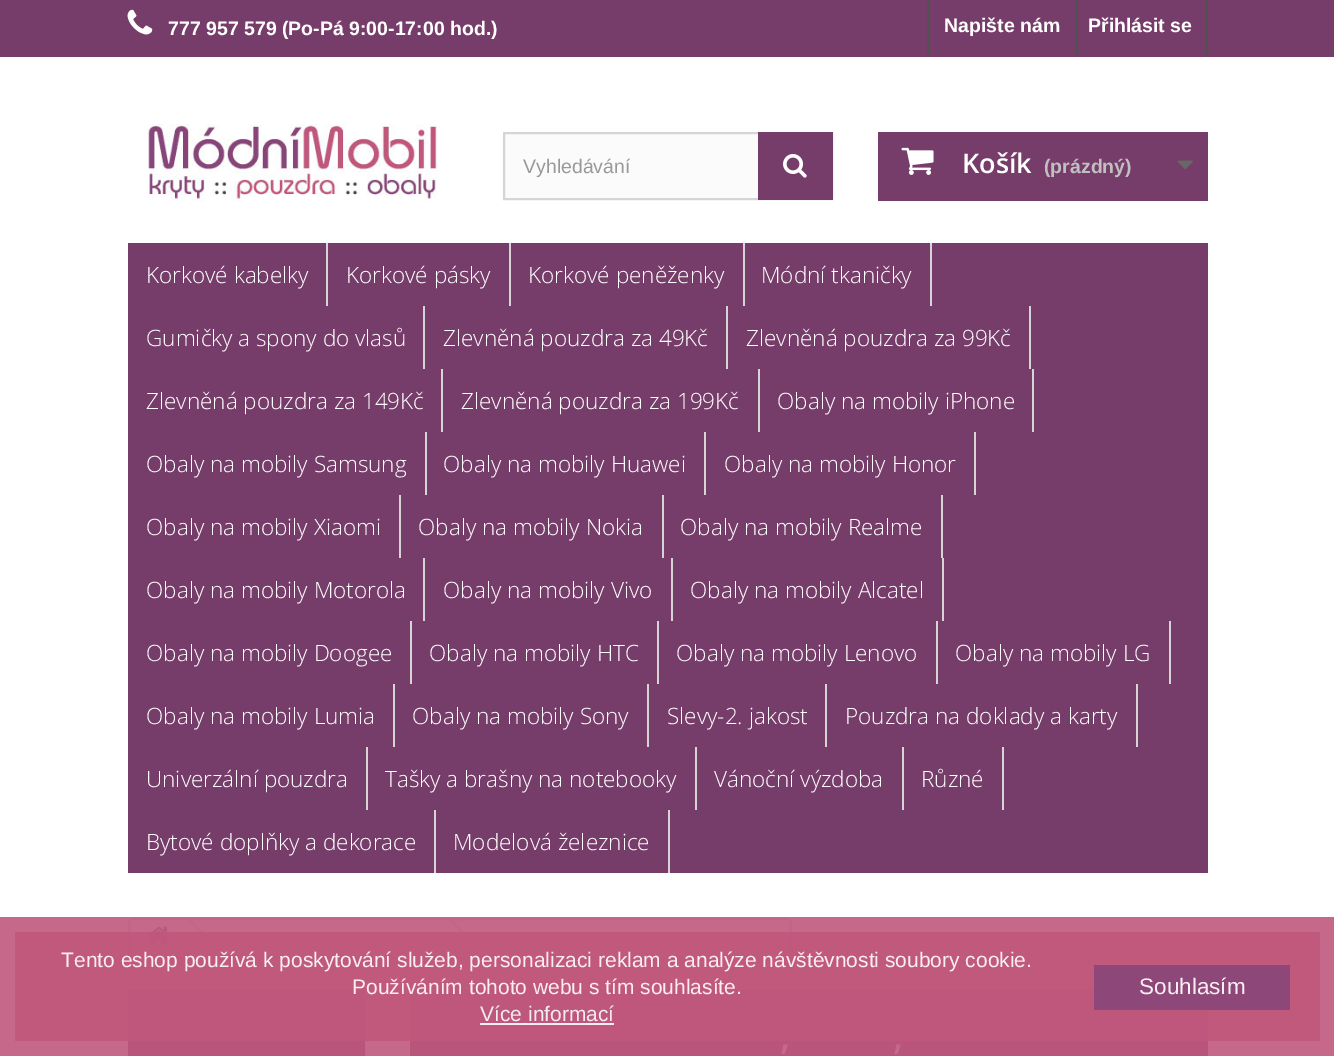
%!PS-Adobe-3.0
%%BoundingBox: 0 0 1334 1056
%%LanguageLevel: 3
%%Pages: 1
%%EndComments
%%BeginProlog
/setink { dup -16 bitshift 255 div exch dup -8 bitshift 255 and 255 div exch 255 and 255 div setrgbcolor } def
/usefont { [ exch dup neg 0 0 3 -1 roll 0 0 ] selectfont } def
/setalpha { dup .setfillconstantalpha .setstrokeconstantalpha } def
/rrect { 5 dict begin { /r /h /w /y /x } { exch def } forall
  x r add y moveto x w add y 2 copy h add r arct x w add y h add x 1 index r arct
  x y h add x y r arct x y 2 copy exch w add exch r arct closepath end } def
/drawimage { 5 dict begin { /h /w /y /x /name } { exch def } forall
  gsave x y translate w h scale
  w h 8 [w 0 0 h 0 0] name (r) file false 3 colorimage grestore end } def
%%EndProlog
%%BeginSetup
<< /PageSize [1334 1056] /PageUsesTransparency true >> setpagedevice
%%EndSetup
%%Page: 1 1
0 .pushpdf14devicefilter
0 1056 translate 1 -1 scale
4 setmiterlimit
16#FFFFFF setink
0 0 1334 1056 rectfill
16#C66889 setink
0 917 1334 139 rectfill
16#763D6A setink
0 0 1334 57 rectfill
(img1.raw) 127 9 26 26 drawimage
/LiberationSans-Bold 19.5 usefont
16#FFFFFF setink
168 35 moveto (777 957 579 \(Po-Pá 9:00-17:00 hod.\)) show
16#515151 setink
927 0 2 56 rectfill
16#FFFFFF setink
944 32 moveto (Napište nám) show
16#515151 setink
1206 0 2 56 rectfill
1076 0 2 56 rectfill
16#FFFFFF setink
1088 32 moveto (Přihlásit se) show
(img2.raw) 148 124 290 78 drawimage
16#FBFBFB setink
505 134 253 64 rectfill
16#D6D4D4 setink
2 setlinewidth
504 133 328 66 rectstroke
/LiberationSans-Regular 19.5 usefont
16#999999 setink
523 173 moveto (Vyhledávání) show
16#763D6A setink
758 132 75 68 rectfill
(img3.raw) 783 154 24 24 drawimage
878 132 330 69 rectfill
(img4.raw) 901 147 33 28 drawimage
/OpenSans-SemiBold 27 usefont
16#FFFFFF setink
962 173 moveto (Košík) show
/LiberationSans-Bold 19.5 usefont
16#C0C0C0 setink
1044 173 moveto (\(prázdný\)) show
(img5.raw) 1177 160 16 9 drawimage
16#763D6A setink
128 243 1080 630 rectfill
16#D6D4D4 setink
326 243 2 63 rectfill
/OpenSans-Light 22.5 usefont
16#FFFFFF setink
146 283 moveto (Korkové kabelky) show
16#D6D4D4 setink
509 243 2 63 rectfill
16#FFFFFF setink
346 283 moveto (Korkové pásky) show
16#D6D4D4 setink
743 243 2 63 rectfill
16#FFFFFF setink
528 283 moveto (Korkové peněženky) show
16#D6D4D4 setink
930 243 2 63 rectfill
16#FFFFFF setink
761 283 moveto (Módní tkaničky) show
16#D6D4D4 setink
423 306 2 63 rectfill
16#FFFFFF setink
146 346 moveto (Gumičky a spony do vlasů) show
16#D6D4D4 setink
726 306 2 63 rectfill
16#FFFFFF setink
443 346 moveto (Zlevněná pouzdra za 49Kč) show
16#D6D4D4 setink
1029 306 2 63 rectfill
16#FFFFFF setink
746 346 moveto (Zlevněná pouzdra za 99Kč) show
16#D6D4D4 setink
441 369 2 63 rectfill
16#FFFFFF setink
146 409 moveto (Zlevněná pouzdra za 149Kč) show
16#D6D4D4 setink
758 369 2 63 rectfill
16#FFFFFF setink
461 409 moveto (Zlevněná pouzdra za 199Kč) show
16#D6D4D4 setink
1032 369 2 63 rectfill
16#FFFFFF setink
777 409 moveto (Obaly na mobily iPhone) show
16#D6D4D4 setink
425 432 2 63 rectfill
16#FFFFFF setink
146 472 moveto (Obaly na mobily Samsung) show
16#D6D4D4 setink
704 432 2 63 rectfill
16#FFFFFF setink
443 472 moveto (Obaly na mobily Huawei) show
16#D6D4D4 setink
974 432 2 63 rectfill
16#FFFFFF setink
724 472 moveto (Obaly na mobily Honor) show
16#D6D4D4 setink
399 495 2 63 rectfill
16#FFFFFF setink
146 535 moveto (Obaly na mobily Xiaomi) show
16#D6D4D4 setink
662 495 2 63 rectfill
16#FFFFFF setink
418 535 moveto (Obaly na mobily Nokia) show
16#D6D4D4 setink
941 495 2 63 rectfill
16#FFFFFF setink
680 535 moveto (Obaly na mobily Realme) show
16#D6D4D4 setink
423 558 2 63 rectfill
16#FFFFFF setink
146 598 moveto (Obaly na mobily Motorola) show
16#D6D4D4 setink
671 558 2 63 rectfill
16#FFFFFF setink
443 598 moveto (Obaly na mobily Vivo) show
16#D6D4D4 setink
942 558 2 63 rectfill
16#FFFFFF setink
690 598 moveto (Obaly na mobily Alcatel) show
16#D6D4D4 setink
410 621 2 63 rectfill
16#FFFFFF setink
146 661 moveto (Obaly na mobily Doogee) show
16#D6D4D4 setink
657 621 2 63 rectfill
16#FFFFFF setink
429 661 moveto (Obaly na mobily HTC) show
16#D6D4D4 setink
936 621 2 63 rectfill
16#FFFFFF setink
676 661 moveto (Obaly na mobily Lenovo) show
16#D6D4D4 setink
1169 621 2 63 rectfill
16#FFFFFF setink
955 661 moveto (Obaly na mobily LG) show
16#D6D4D4 setink
393 684 2 63 rectfill
16#FFFFFF setink
146 724 moveto (Obaly na mobily Lumia) show
16#D6D4D4 setink
647 684 2 63 rectfill
16#FFFFFF setink
412 724 moveto (Obaly na mobily Sony) show
16#D6D4D4 setink
825 684 2 63 rectfill
16#FFFFFF setink
667 724 moveto (Slevy-2. jakost) show
16#D6D4D4 setink
1136 684 2 63 rectfill
16#FFFFFF setink
845 724 moveto (Pouzdra na doklady a karty) show
16#D6D4D4 setink
366 747 2 63 rectfill
16#FFFFFF setink
146 787 moveto (Univerzální pouzdra) show
16#D6D4D4 setink
695 747 2 63 rectfill
16#FFFFFF setink
385 787 moveto (Tašky a brašny na notebooky) show
16#D6D4D4 setink
902 747 2 63 rectfill
16#FFFFFF setink
714 787 moveto (Vánoční výzdoba) show
16#D6D4D4 setink
1002 747 2 63 rectfill
16#FFFFFF setink
921 787 moveto (Různé) show
16#D6D4D4 setink
434 810 2 63 rectfill
16#FFFFFF setink
146 850 moveto (Bytové doplňky a dekorace) show
16#D6D4D4 setink
668 810 2 63 rectfill
16#FFFFFF setink
453 850 moveto (Modelová železnice) show
16#C26485 setink
129 919 662 39 4 rrect stroke
(img6.raw) 147 926 24 19 drawimage
191 920 moveto 207 936 lineto 206 937 lineto 189 920 lineto closepath 206 937 moveto 207 938 lineto 190 955 lineto 189 954 lineto closepath fill
451.5 920 moveto 467.5 936 lineto 466.5 937 lineto 449.5 920 lineto closepath 466.5 937 moveto 467.5 938 lineto 450.5 955 lineto 449.5 954 lineto closepath fill
[
    [128 990 237 66 16#B9547A]
    [410 990 684 8 16#B25375]
    [410 998 798 58 16#B9547A]
] { aload pop setink rectfill } forall
0.9 setalpha
[
    [15 932 1305 109 16#C0577C]
] { aload pop setink rectfill } forall
/LiberationSans-Regular 21 usefont
1 setalpha
16#F9EEF2 setink
61 967 moveto (Tento eshop používá k poskytování služeb, personalizaci reklam a analýze návštěvnosti soubory cookie.) show
352 994 moveto (Používáním tohoto webu s tím souhlasíte.) show
16#F1ECF0 setink
480 1021 moveto (Více informací) show
16#F9EEF2 setink
480 1023 134 2 rectfill
16#8D4879 setink
1094 965 196 45 rectfill
/LiberationSans-Regular 22.5 usefont
16#F9EEF2 setink
1139 994 moveto (Souhlasím) show
/OpenSans-SemiBold 38 usefont
16#C66889 setink
780 1049 moveto (,) show
893 1049 moveto (,) show
.poppdf14devicefilter showpage
%%EOF
